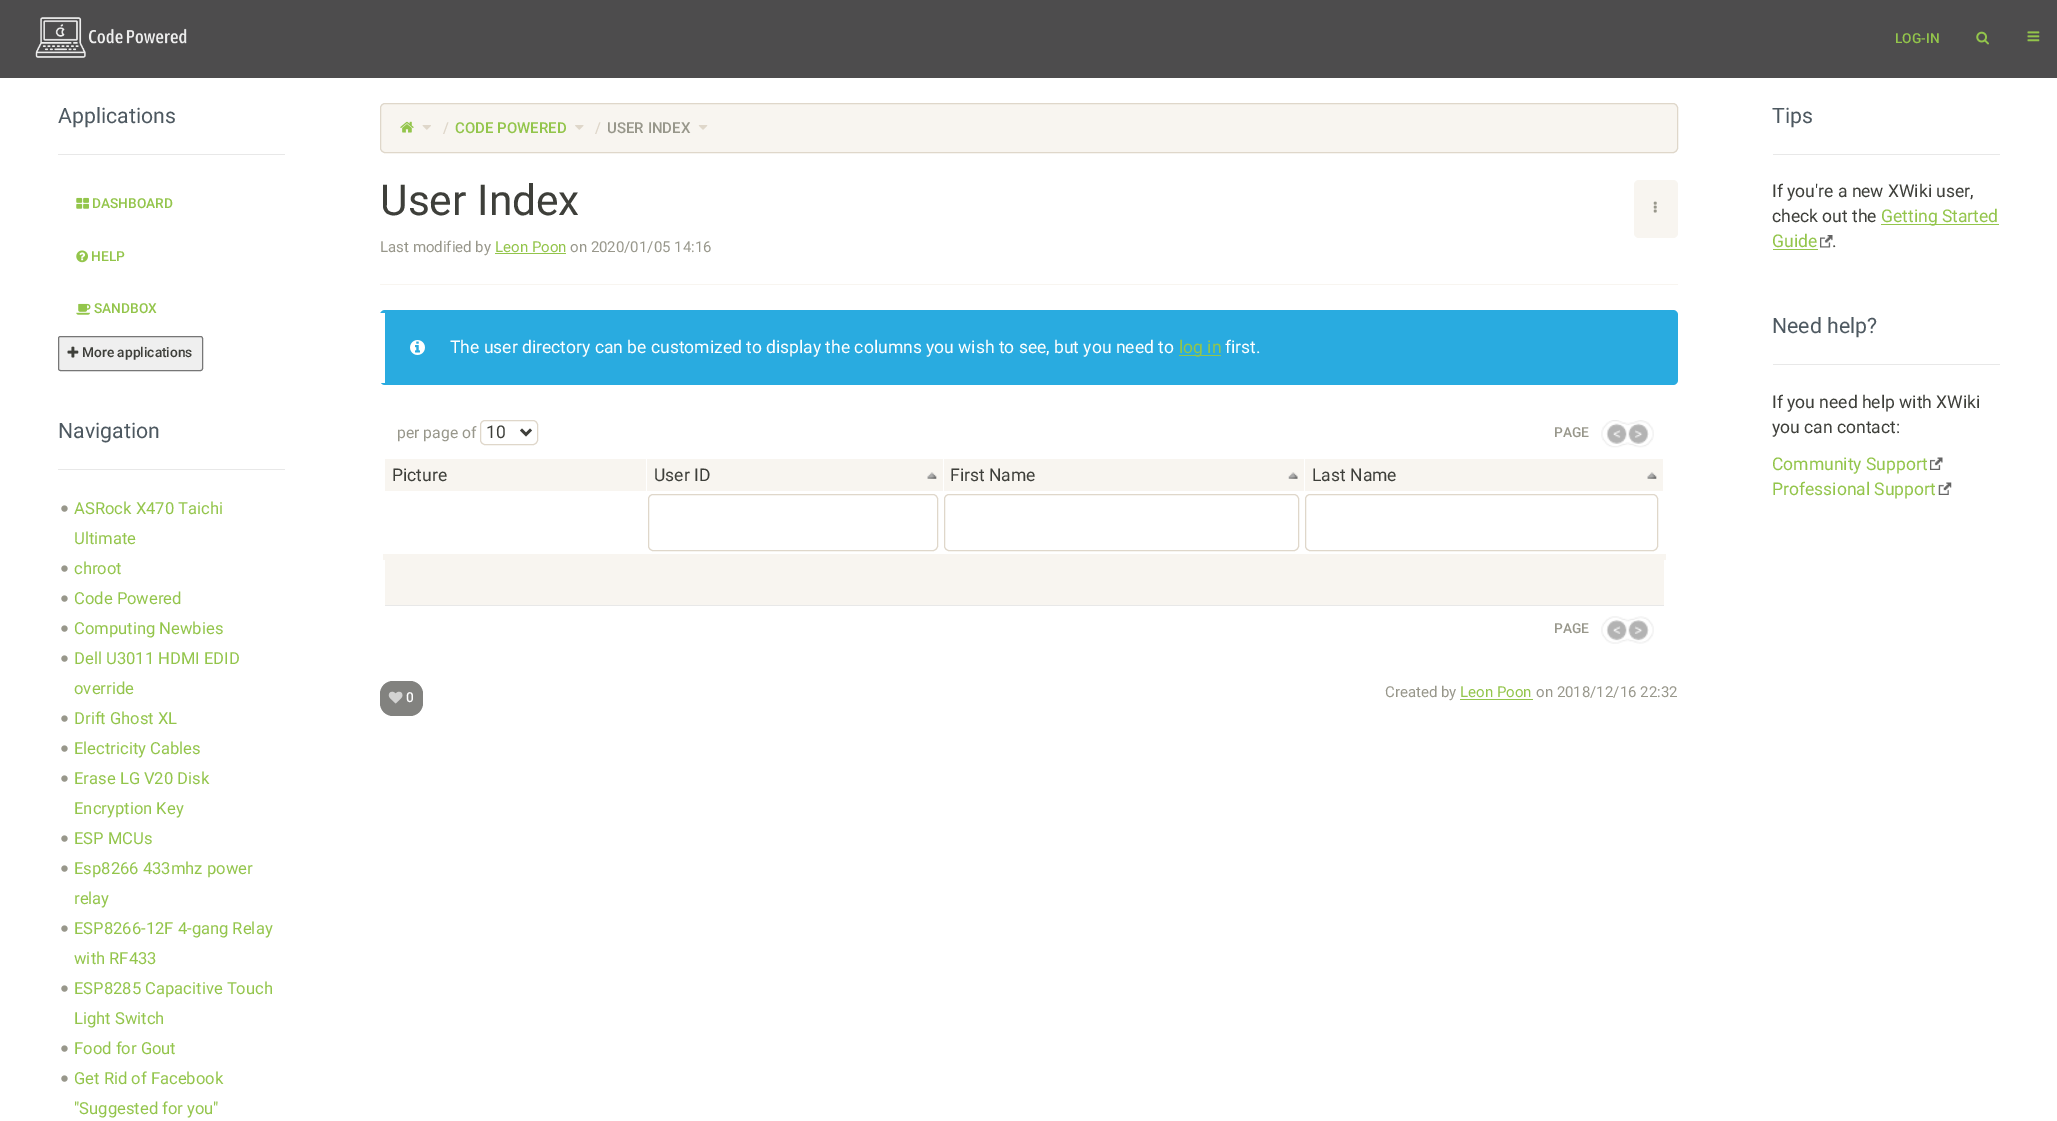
%!PS-Adobe-3.0
%%BoundingBox: 0 0 2057 1121
%%LanguageLevel: 3
%%Pages: 1
%%EndComments
%%BeginProlog
/setink { dup -16 bitshift 255 div exch dup -8 bitshift 255 and 255 div exch 255 and 255 div setrgbcolor } def
/usefont { [ exch dup neg 0 0 3 -1 roll 0 0 ] selectfont } def
/rrect { 5 dict begin { /r /h /w /y /x } { exch def } forall
  x r add y moveto x w add y 2 copy h add r arct x w add y h add x 1 index r arct
  x y h add x y r arct x y 2 copy exch w add exch r arct closepath end } def
/drawimage { 5 dict begin { /h /w /y /x /name } { exch def } forall
  gsave x y translate w h scale
  w h 8 [w 0 0 h 0 0] name (r) file false 3 colorimage grestore end } def
%%EndProlog
%%BeginSetup
<< /PageSize [2057 1121] >> setpagedevice
%%EndSetup
%%Page: 1 1
0 1121 translate 1 -1 scale
4 setmiterlimit
16#FFFFFF setink
0 0 2057 1121 rectfill
16#4D4C4D setink
0 0 2057 78 rectfill
(img1.raw) 35 17 152 41 drawimage
/Roboto-Medium 13.75 usefont
16#93C54B setink
1895 43 moveto (LOG-IN) show
(img2.raw) 1976 31 13 14 drawimage
(img3.raw) 2027 31 13 11 drawimage
16#E8E8E8 setink
58 154 227 1 rectfill
/Roboto-Regular 21.25 usefont
16#4D5860 setink
58 123 moveto (Applications) show
(img4.raw) 76 197 13 12 drawimage
/Roboto-Medium 13.75 usefont
16#93C54B setink
92 208 moveto (DASHBOARD) show
(img5.raw) 76 250 12 13 drawimage
91 261 moveto (HELP) show
(img6.raw) 76 303 15 12 drawimage
94 313 moveto (SANDBOX) show
16#EFEFEF setink
58.5 336.5 144 34 2 rrect gsave fill grestore
16#767676 setink
stroke
(img7.raw) 67 346 12 12 drawimage
16#3E3F3A setink
82 357 moveto (More applications) show
16#E8E8E8 setink
58 469 227 1 rectfill
/Roboto-Regular 21.25 usefont
16#4D5860 setink
58 438 moveto (Navigation) show
(img8.raw) 61 505 7 7 drawimage
/Roboto-Regular 16.6 usefont
16#93C54B setink
74 514 moveto (ASRock X470 Taichi) show
74 544 moveto (Ultimate) show
(img8.raw) 61 565 7 7 drawimage
74 574 moveto (chroot) show
(img8.raw) 61 595 7 7 drawimage
74 604 moveto (Code Powered) show
(img8.raw) 61 625 7 7 drawimage
74 634 moveto (Computing Newbies) show
(img8.raw) 61 655 7 7 drawimage
74 664 moveto (Dell U3011 HDMI EDID) show
74 694 moveto (override) show
(img8.raw) 61 715 7 7 drawimage
74 724 moveto (Drift Ghost XL) show
(img8.raw) 61 745 7 7 drawimage
74 754 moveto (Electricity Cables) show
(img8.raw) 61 775 7 7 drawimage
74 784 moveto (Erase LG V20 Disk) show
74 814 moveto (Encryption Key) show
(img8.raw) 61 835 7 7 drawimage
74 844 moveto (ESP MCUs) show
(img8.raw) 61 865 7 7 drawimage
74 874 moveto (Esp8266 433mhz power) show
74 904 moveto (relay) show
(img8.raw) 61 925 7 7 drawimage
74 934 moveto (ESP8266-12F 4-gang Relay) show
74 964 moveto (with RF433) show
(img8.raw) 61 985 7 7 drawimage
74 994 moveto (ESP8285 Capacitive Touch) show
74 1024 moveto (Light Switch) show
(img8.raw) 61 1045 7 7 drawimage
74 1054 moveto (Food for Gout) show
(img8.raw) 61 1075 7 7 drawimage
74 1084 moveto (Get Rid of Facebook) show
74 1114 moveto ("Suggested for you") show
16#F8F5F0 setink
380.5 103.5 1297 49 4.5 rrect gsave fill grestore
16#DFD7CA setink
stroke
(img9.raw) 400 121 14 12 drawimage
(img10.raw) 422 125 9 5 drawimage
/Roboto-Medium 15 usefont
443 133 moveto (/) show
16#93C54B setink
455 133 moveto (CODE POWERED) show
(img11.raw) 575 125 9 5 drawimage
16#DFD7CA setink
595 133 moveto (/) show
16#98978B setink
607 133 moveto (USER INDEX) show
(img12.raw) 698 125 10 5 drawimage
/Roboto-Regular 42.5 usefont
16#3E3F3A setink
380 215 moveto (User Index) show
/Roboto-Regular 15 usefont
16#98978B setink
380 252 moveto (Last modified by) show
16#93C54B setink
495 252 moveto (Leon Poon) show
495 253 71 1 rectfill
16#98978B setink
570 252 moveto (on 2020/01/05 14:16) show
16#F8F5F0 setink
1634 180 44 58 5 rrect fill
(img13.raw) 1653 201 4 12 drawimage
380 284 1298 1 rectfill
16#29ABE0 setink
380 310 1298 75 5 rrect fill
16#FFFFFF setink
380 313 5 70 rectfill
(img14.raw) 410 340 15 15 drawimage
/Roboto-Regular 17.5 usefont
450 353 moveto (The user directory can be customized to display the columns you wish to see, but you need to) show
16#93C54B setink
1179 355 42 1 rectfill
1179 353 moveto (log in) show
16#FFFFFF setink
1225 353 moveto (first.) show
/Roboto-Regular 15.75 usefont
16#98978B setink
397 438 moveto (per page of) show
16#DFD7CA setink
480.5 420.5 57 24 4.5 rrect stroke
16#3E3F3A setink
2.5 setlinewidth
521 429.5 moveto 526 434.5 lineto 531 429.5 lineto stroke
/Roboto-Regular 17.5 usefont
486 438 moveto (10) show
/Roboto-Medium 13.75 usefont
16#98978B setink
1554 437 moveto (PAGE) show
(img15.raw) 1601 420 27 28 drawimage
(img16.raw) 1627 420 27 28 drawimage
[
    [383 554 1283 6 16#F8F5F0]
    [385 459 558 32 16#F8F5F0]
    [646 459 1 32 16#FFFFFF]
] { aload pop setink rectfill } forall
/Roboto-Regular 17.5 usefont
16#3E3F3A setink
392 481 moveto (Picture) show
(img17.raw) 927 472 10 7 drawimage
654 481 moveto (User ID) show
16#F8F5F0 setink
944 459 360 32 rectfill
(img18.raw) 1288 472 10 7 drawimage
16#3E3F3A setink
950 481 moveto (First Name) show
16#F8F5F0 setink
1305 459 358 32 rectfill
(img17.raw) 1647 472 10 7 drawimage
16#3E3F3A setink
1312 481 moveto (Last Name) show
16#DFD7CA setink
1 setlinewidth
648.5 494.5 289 56 4.5 rrect stroke
944.5 494.5 354 56 4.5 rrect stroke
1305.5 494.5 352 56 4.5 rrect stroke
16#F8F5F0 setink
385 560 1279 45 rectfill
16#E8E8E8 setink
385 605 1279 1 rectfill
/Roboto-Medium 13.75 usefont
16#98978B setink
1554 633 moveto (PAGE) show
(img19.raw) 1601 616 27 28 drawimage
(img20.raw) 1627 616 27 28 drawimage
16#82827F setink
380 681 43 35 13 rrect fill
(img21.raw) 388 691 15 13 drawimage
16#FFFFFF setink
406 702 moveto (0) show
/Roboto-Regular 15 usefont
16#98978B setink
1385 697 moveto (Created by) show
16#93C54B setink
1460 697 moveto (Leon Poon) show
1460 699 73 1 rectfill
16#98978B setink
1536 697 moveto (on 2018/12/16 22:32) show
16#E8E8E8 setink
1773 154 227 1 rectfill
/Roboto-Regular 21.25 usefont
16#4D5860 setink
1772 123 moveto (Tips) show
/Roboto-Regular 17.5 usefont
16#3E3F3A setink
1772 197 moveto (If you're a new XWiki user,) show
1772 222 moveto (check out the) show
16#93C54B setink
1881 224 118 1 rectfill
1881 222 moveto (Getting Started) show
1772 247 moveto (Guide) show
1773 249 45 1 rectfill
(img22.raw) 1820 235 13 13 drawimage
16#3E3F3A setink
1832 247 moveto (.) show
16#E8E8E8 setink
1773 364 227 1 rectfill
/Roboto-Regular 21.25 usefont
16#4D5860 setink
1772 333 moveto (Need help?) show
/Roboto-Regular 17.5 usefont
16#3E3F3A setink
1772 408 moveto (If you need help with XWiki) show
1772 433 moveto (you can contact:) show
16#93C54B setink
1772 470 moveto (Community Support) show
(img23.raw) 1930 457 13 13 drawimage
1772 495 moveto (Professional Support) show
(img24.raw) 1938 482 14 13 drawimage
showpage
%%EOF
